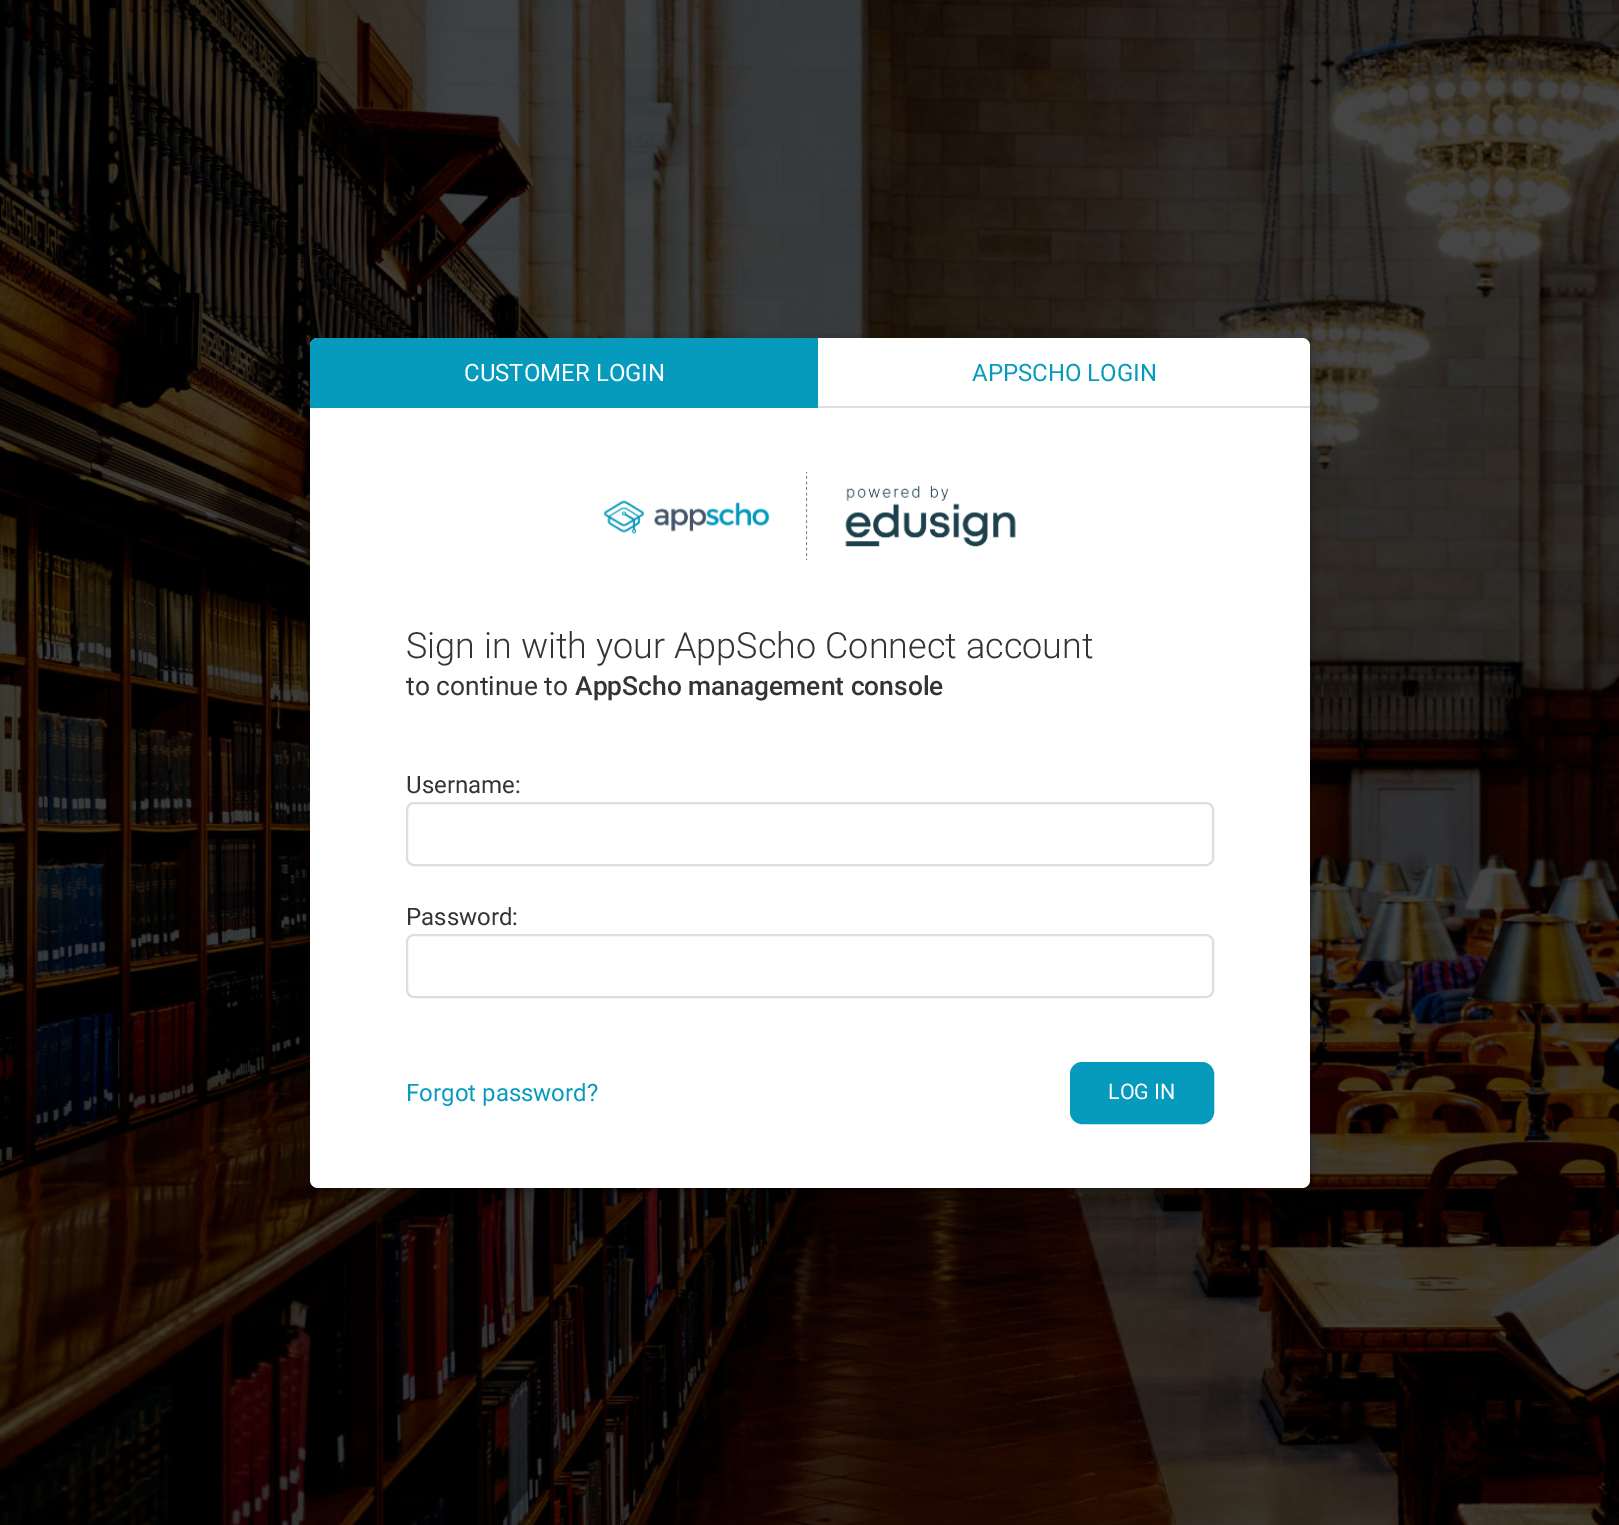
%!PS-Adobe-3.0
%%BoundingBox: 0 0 1619 1525
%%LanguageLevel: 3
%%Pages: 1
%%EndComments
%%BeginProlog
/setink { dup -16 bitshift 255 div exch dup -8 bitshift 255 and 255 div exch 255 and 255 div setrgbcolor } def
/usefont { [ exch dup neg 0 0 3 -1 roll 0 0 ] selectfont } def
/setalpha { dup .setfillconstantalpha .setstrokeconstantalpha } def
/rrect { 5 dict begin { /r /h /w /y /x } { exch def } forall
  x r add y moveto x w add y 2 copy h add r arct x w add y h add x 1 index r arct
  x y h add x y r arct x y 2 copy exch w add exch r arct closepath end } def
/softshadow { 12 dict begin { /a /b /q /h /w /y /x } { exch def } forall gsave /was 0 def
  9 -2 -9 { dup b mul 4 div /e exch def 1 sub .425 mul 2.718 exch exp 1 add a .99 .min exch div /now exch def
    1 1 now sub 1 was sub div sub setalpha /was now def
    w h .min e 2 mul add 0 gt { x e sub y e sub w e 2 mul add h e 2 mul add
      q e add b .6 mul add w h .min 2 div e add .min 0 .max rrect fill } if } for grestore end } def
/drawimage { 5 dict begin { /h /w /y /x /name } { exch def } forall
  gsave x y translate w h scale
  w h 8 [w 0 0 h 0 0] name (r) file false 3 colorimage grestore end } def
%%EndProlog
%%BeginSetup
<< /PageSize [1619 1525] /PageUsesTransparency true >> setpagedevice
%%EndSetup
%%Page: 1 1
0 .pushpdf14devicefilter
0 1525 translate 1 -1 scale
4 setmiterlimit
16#FFFFFF setink
0 0 1619 1525 rectfill
(img1.raw) 0 0 1619 1525 drawimage
16#000000 setink
310 344 1000 850 8 8 0.2 softshadow
310 344 1000 850 8 8 0.2 softshadow
16#FFFFFF setink
310 338 1000 850 8 rrect fill
16#069BBD setink
318 338 moveto 818 338 lineto 818 408 lineto 310 408 lineto 310 346 lineto 310 341.5 313.5 338 318 338 curveto closepath fill
/Roboto-Regular 24 usefont
16#FFFFFF setink
464 381 moveto (CUSTOMER LOGIN) show
16#DEDEDE setink
818 406 492 2 rectfill
16#069BBD setink
972 381 moveto (APPSCHO LOGIN) show
(img2.raw) 603 472 413 88 drawimage
/Roboto-Light 36 usefont
16#343434 setink
406 658 moveto (Sign in with your AppScho Connect account) show
/Roboto-Regular 26.4 usefont
406 695 moveto (to continue to) show
/Roboto-Medium 26.4 usefont
575 695 moveto (AppScho management console) show
/Roboto-Regular 24 usefont
406 793 moveto (Username:) show
16#DEDEDE setink
2 setlinewidth
407 803 806 62 7 rrect stroke
16#343434 setink
406 925 moveto (Password:) show
16#DEDEDE setink
407 935 806 62 7 rrect stroke
16#069BBD setink
406 1101 moveto (Forgot password?) show
1071 1063 142 60 11 rrect gsave fill grestore
stroke
/Roboto-Regular 21.5 usefont
16#FFFFFF setink
1108 1099 moveto (LOG IN) show
.poppdf14devicefilter showpage
%%EOF
